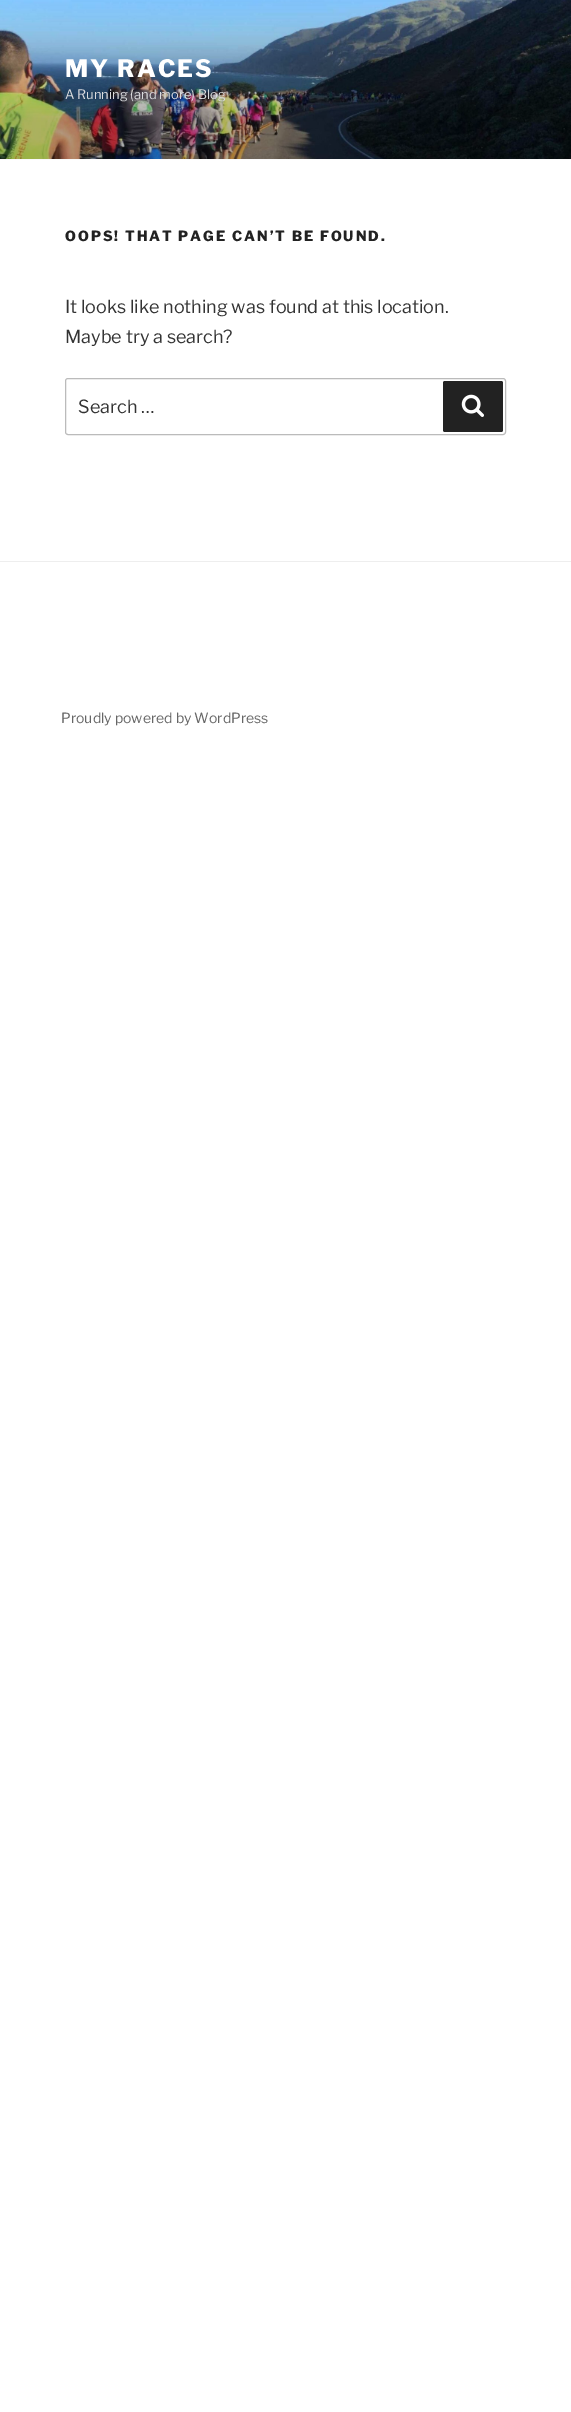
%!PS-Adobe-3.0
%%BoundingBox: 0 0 571 2412
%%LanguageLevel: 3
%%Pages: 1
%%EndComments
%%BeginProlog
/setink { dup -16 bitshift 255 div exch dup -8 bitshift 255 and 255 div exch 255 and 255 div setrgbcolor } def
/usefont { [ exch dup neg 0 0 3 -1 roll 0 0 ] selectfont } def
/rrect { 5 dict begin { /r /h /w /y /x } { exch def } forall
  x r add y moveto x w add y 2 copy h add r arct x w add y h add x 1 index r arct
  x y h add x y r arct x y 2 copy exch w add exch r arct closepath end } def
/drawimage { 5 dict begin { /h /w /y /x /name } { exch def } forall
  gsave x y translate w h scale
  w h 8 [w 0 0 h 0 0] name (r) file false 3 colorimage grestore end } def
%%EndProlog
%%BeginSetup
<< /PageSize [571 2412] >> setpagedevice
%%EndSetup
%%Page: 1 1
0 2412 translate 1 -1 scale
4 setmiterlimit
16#FFFFFF setink
0 0 571 2412 rectfill
16#FAFAFA setink
0 159 571 1 rectfill
(img1.raw) 0 0 571 159 drawimage
/LibreFranklin-Thin 24 usefont
16#FFFFFF setink
65 77 moveto 2 0 (MY RACES) ashow
/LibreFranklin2-Thin 13 usefont
16#DADBDE setink
65 99 moveto (A Running \(and more\) Blog) show
/LibreFranklin-Thin 14 usefont
16#222222 setink
65 241 moveto 1.95 0 (OOPS! THAT PAGE CAN’T BE FOUND.) ashow
/LibreFranklin2-Thin 18 usefont
16#333333 setink
65 313 moveto (It looks like nothing was found at this location.) show
65 343 moveto (Maybe try a search?) show
16#BBBBBB setink
65.5 378.5 440 56 2.5 rrect stroke
16#333333 setink
78 413 moveto (Search …) show
16#222222 setink
443 381 60 51 2 rrect fill
(img2.raw) 461 394 23 23 drawimage
16#EEEEEE setink
0 561 571 1 rectfill
/LibreFranklin2-Thin 14 usefont
16#666666 setink
61 723 moveto (Proudly powered by WordPress) show
showpage
%%EOF
